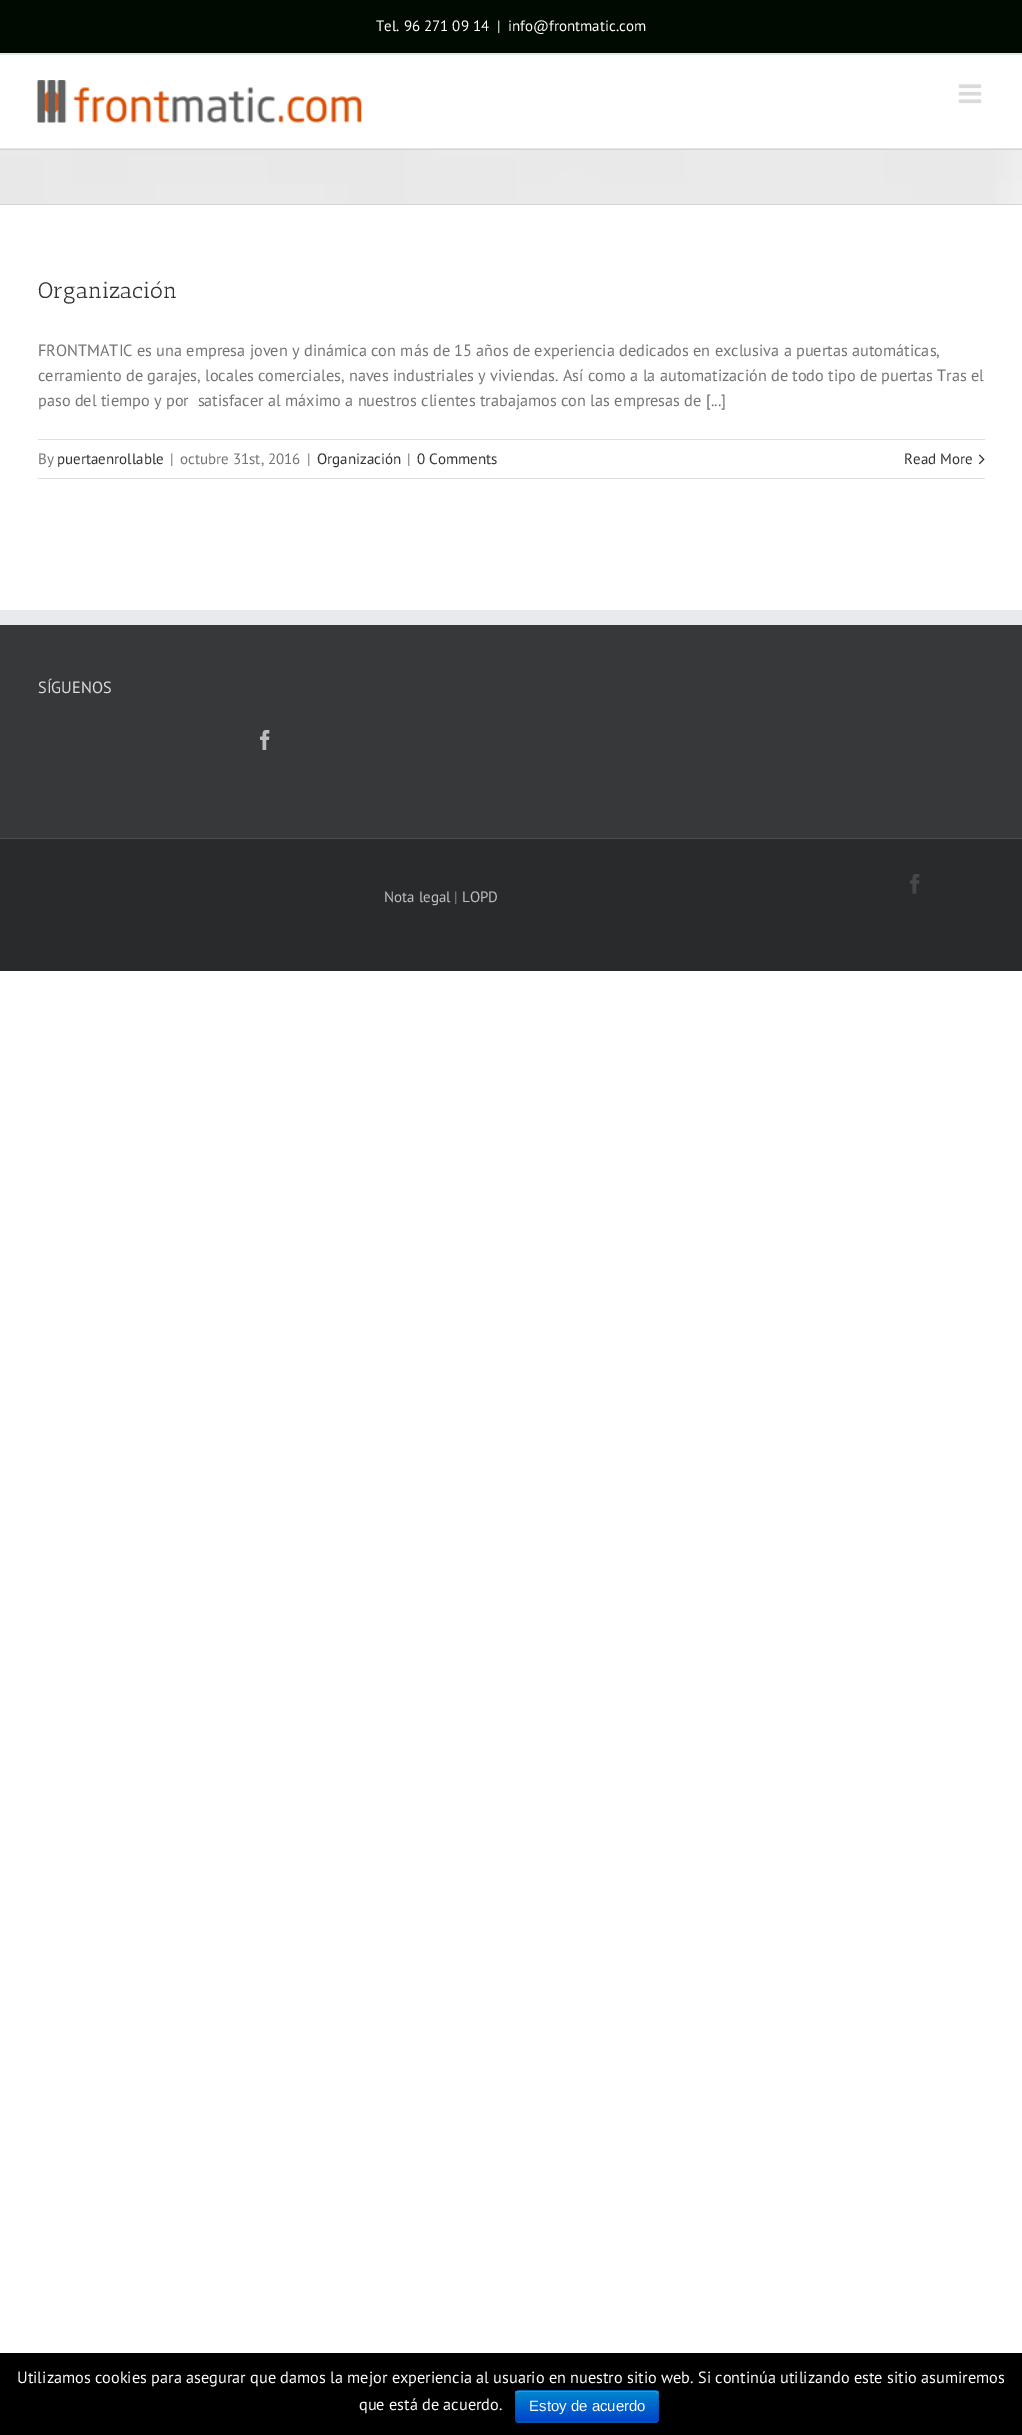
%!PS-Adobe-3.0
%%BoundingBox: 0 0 1022 2435
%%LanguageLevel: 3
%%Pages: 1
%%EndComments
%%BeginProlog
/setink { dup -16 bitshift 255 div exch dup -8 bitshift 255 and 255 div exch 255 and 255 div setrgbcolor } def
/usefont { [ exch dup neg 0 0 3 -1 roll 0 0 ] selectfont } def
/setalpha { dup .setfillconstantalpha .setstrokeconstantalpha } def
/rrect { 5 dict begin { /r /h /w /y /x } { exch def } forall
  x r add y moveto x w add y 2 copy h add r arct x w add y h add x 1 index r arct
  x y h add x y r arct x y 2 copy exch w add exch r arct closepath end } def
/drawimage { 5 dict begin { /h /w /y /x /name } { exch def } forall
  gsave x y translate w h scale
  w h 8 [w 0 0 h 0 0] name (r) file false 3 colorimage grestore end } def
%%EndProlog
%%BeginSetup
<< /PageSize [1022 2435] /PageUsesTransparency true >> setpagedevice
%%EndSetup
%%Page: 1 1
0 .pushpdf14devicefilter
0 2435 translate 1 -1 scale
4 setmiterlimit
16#FFFFFF setink
0 0 1022 2435 rectfill
16#000A01 setink
0 0 1022 53 rectfill
16#E5E5E5 setink
0 53 1022 2 rectfill
/PTSans-Regular 15 usefont
16#FFFFFF setink
[
    [(Tel. 96 271 09 14) 376 31]
    [(|) 497 31]
    [(info@frontmatic.com) 508 31]
] { aload pop moveto show } forall
16#E5E5E5 setink
0 148 1022 1 rectfill
(img1.raw) 37 80 325 43 drawimage
(img2.raw) 958 84 24 20 drawimage
16#F6F6F6 setink
0 150 1022 54 rectfill
(img3.raw) 0 150 1022 54 drawimage
16#D2D3D4 setink
0 149 1022 1 rectfill
0 204 1022 1 rectfill
/AnticSlab-Regular 22.5 usefont
16#333333 setink
38 298 moveto (Organización) show
/PTSans-Regular 16.25 usefont
16#747474 setink
[
    [(FRONTMATIC es una empresa joven y dinámica con más de 15 años de experiencia dedicados en exclusiva a puertas automáticas,) 38 356]
    [(cerramiento de garajes, locales comerciales, naves industriales y viviendas. Así como a la automatización de todo tipo de puertas Tras el) 38 381]
    [(paso del tiempo y por  satisfacer al máximo a nuestros clientes trabajamos con las empresas de [...]) 38 406]
] { aload pop moveto show } forall
16#E0DEDE setink
38 439 947 1 rectfill
38 478 947 1 rectfill
/PTSans-Regular 15 usefont
16#747474 setink
38 464 moveto (By) show
16#333333 setink
57 464 moveto (puertaenrollable) show
16#747474 setink
[
    [(|) 170 464]
    [(octubre 31st, 2016) 180 464]
    [(|) 307 464]
] { aload pop moveto show } forall
16#333333 setink
317 464 moveto (Organización) show
16#747474 setink
407 464 moveto (|) show
16#333333 setink
417 464 moveto (0 Comments) show
904 464 moveto (Read More) show
(img4.raw) 978 454 7 11 drawimage
16#363839 setink
0 625 1022 213 rectfill
16#E9EAEE setink
0 610 1022 15 rectfill
/PTSans-Regular 16.25 usefont
16#DDDDDD setink
38 693 moveto (SÍGUENOS) show
(img5.raw) 260 730 10 20 drawimage
16#282A2B setink
0 839 1022 132 rectfill
16#4B4C4D setink
0 838 1022 1 rectfill
(img6.raw) 910 874 10 20 drawimage
/PTSans-Regular 15 usefont
16#BFBFBF setink
384 902 moveto (Nota legal) show
16#8C8989 setink
454 902 moveto (|) show
16#BFBFBF setink
462 902 moveto (LOPD) show
16#000000 setink
0 2353 1022 82 rectfill
/PTSans-Regular 16.25 usefont
16#FFFFFF setink
17 2383 moveto (Utilizamos cookies para asegurar que damos la mejor experiencia al usuario en nuestro sitio web. Si continúa utilizando este sitio asumiremos) show
359 2410 moveto (que está de acuerdo.) show
16#006DCC setink
515 2390 144 33 4 rrect fill
gsave
515 2390 144 33 4 rrect clip newpath
gsave 515 2391 moveto 659 2391 lineto 659 2421 lineto 515 2421 lineto closepath clip newpath
<< /ShadingType 2 /ColorSpace /DeviceRGB /Coords [587 2391 587 2421] /Extend [true true] /Function << /FunctionType 2 /Domain [0 1] /C0 [0 0.533 0.8] /C1 [0 0.267 0.8] /N 1 >> >> shfill grestore
grestore
0.2 setalpha
16#FFFFFF setink
519 2392 moveto 655 2392 lineto 656 2392 658 2394 658 2395 curveto 658 2394 lineto 658 2392 657 2391 656 2391 curveto 518 2391 lineto 517 2391 516 2392 516 2394 curveto 516 2395 lineto 516 2394 517 2392 519 2392 curveto closepath fill
1 setalpha
16#005299 setink
1.2 setlinewidth
657 2421 moveto 655 2422 lineto 519 2422 lineto 516.5 2421 lineto stroke
0.1 setalpha
16#000000 setink
516.5 2421 moveto 514.5 2419 515.5 2409 515.5 2406 curveto 515.5 2398 lineto 515.5 2395.5 515 2390.5 519 2390.5 curveto 655 2390.5 lineto 659 2390.5 658 2395.5 658 2398 curveto 658 2406 lineto 658 2409 659.5 2419 657 2421 curveto stroke
/LiberationSans-Regular 15 usefont
1 setalpha
16#FFFFFF setink
529 2411 moveto (Estoy de acuerdo) show
.poppdf14devicefilter showpage
%%EOF
